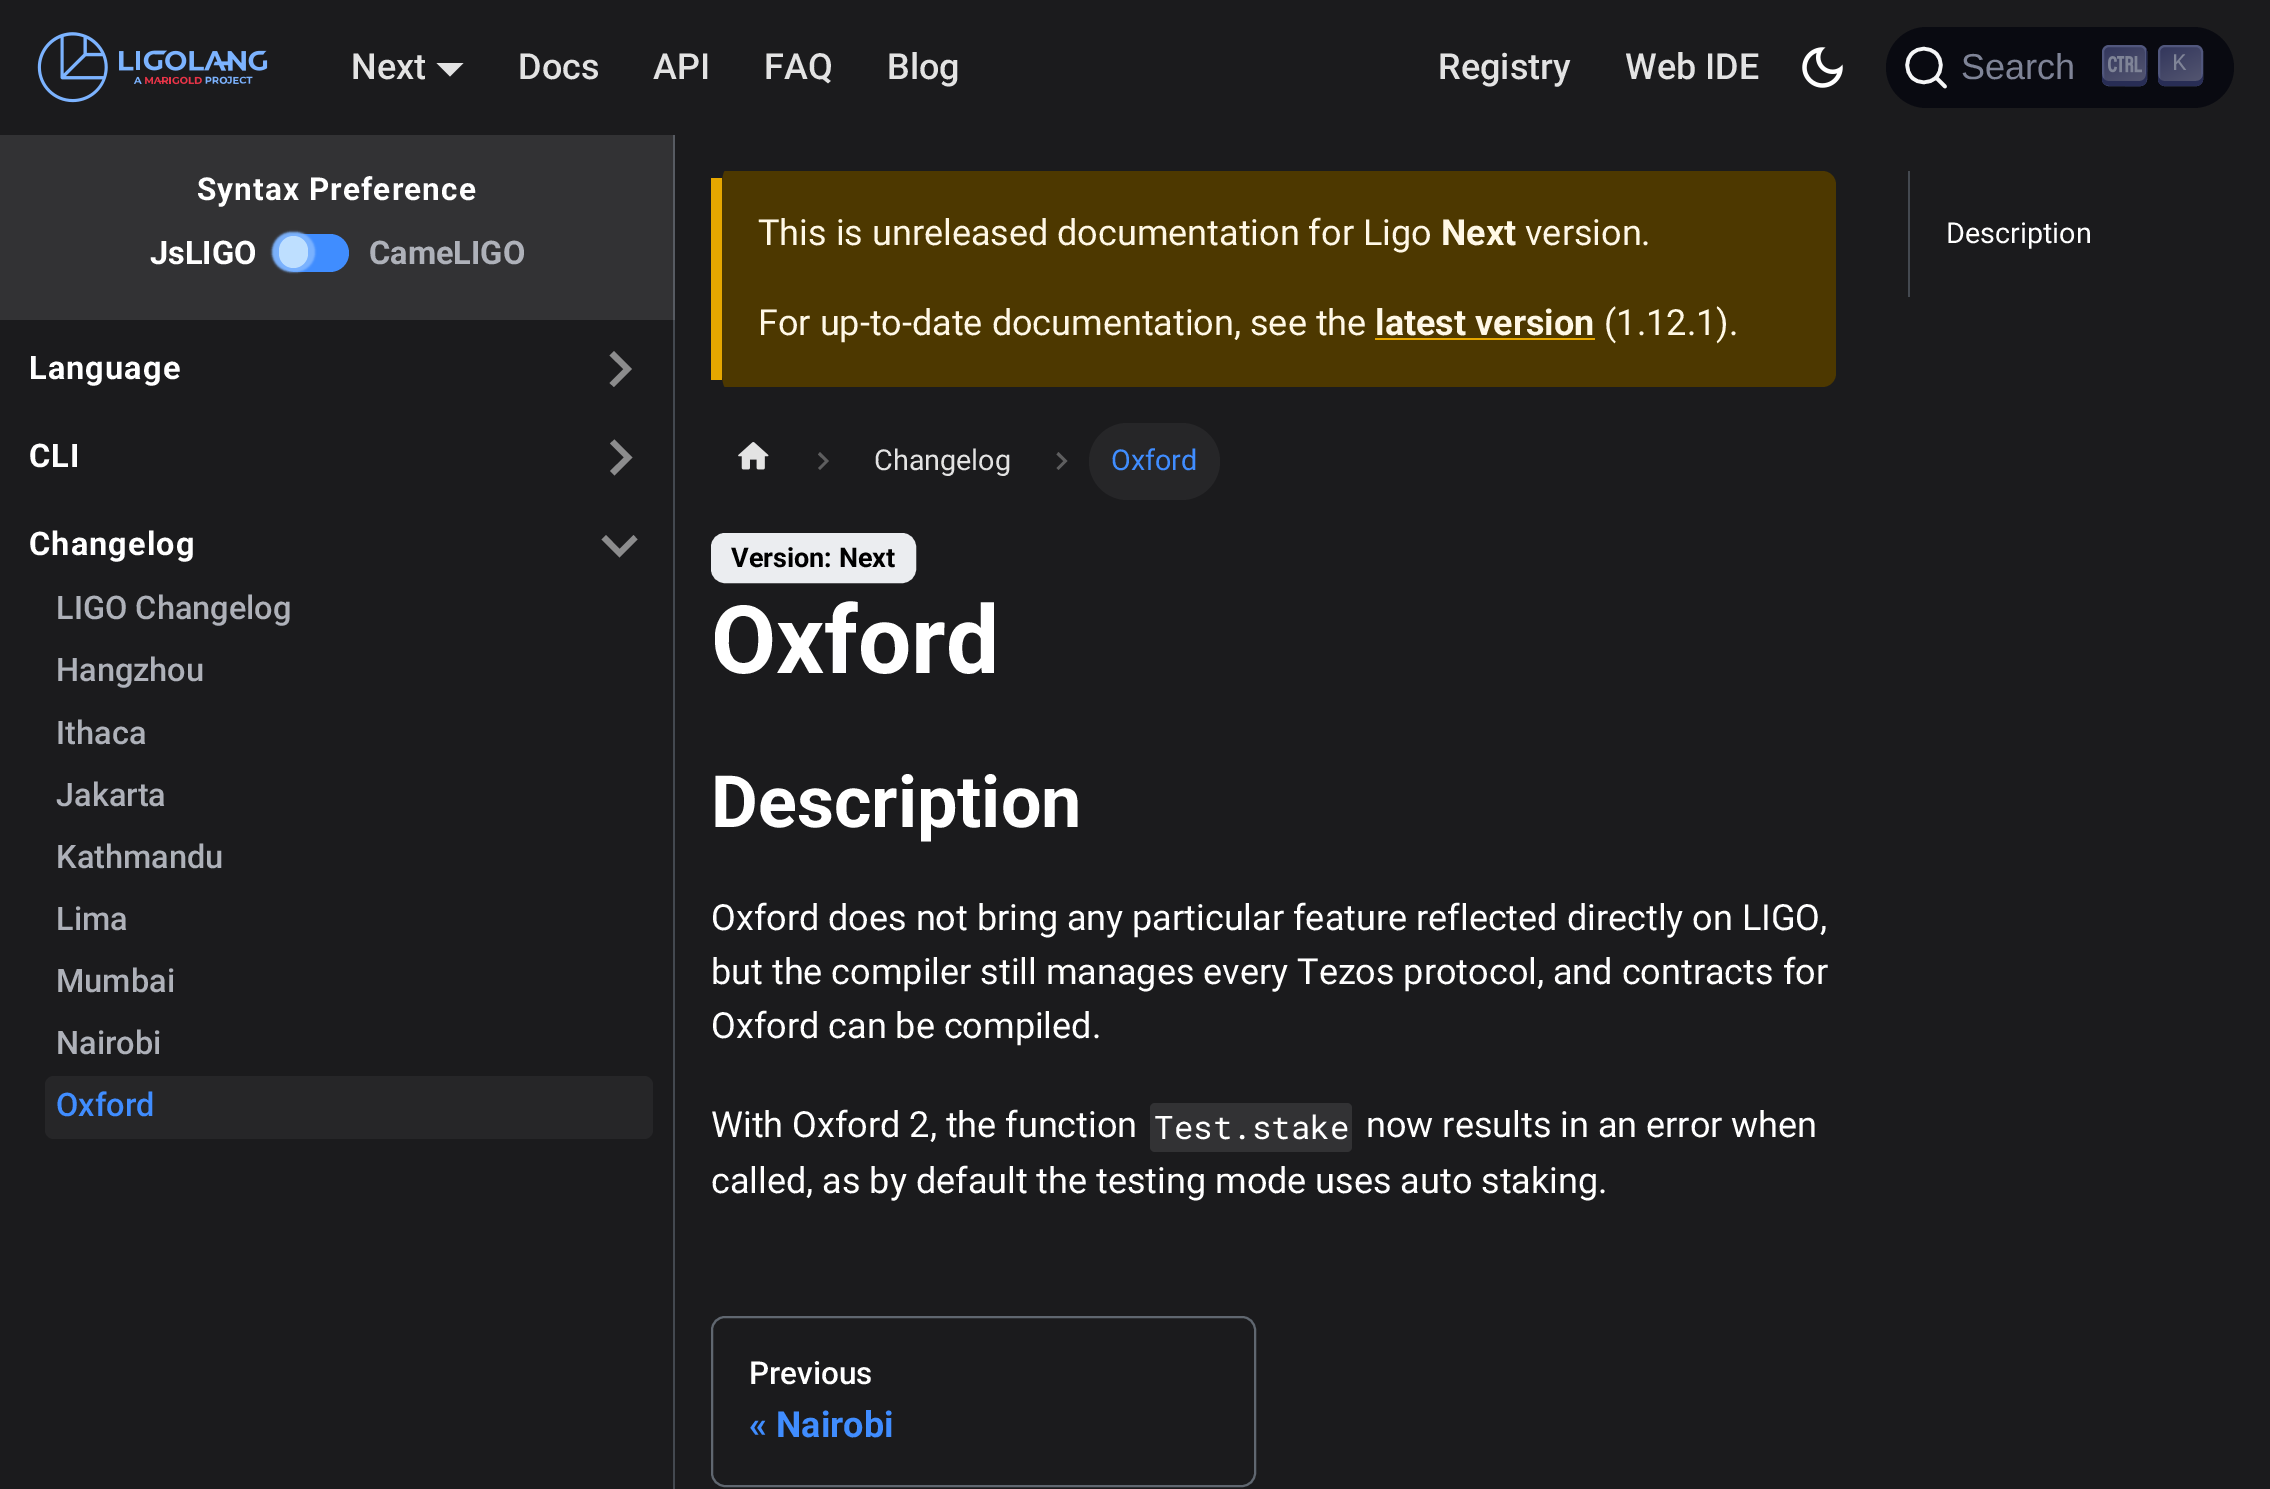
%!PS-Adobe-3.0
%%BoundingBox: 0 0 2270 1489
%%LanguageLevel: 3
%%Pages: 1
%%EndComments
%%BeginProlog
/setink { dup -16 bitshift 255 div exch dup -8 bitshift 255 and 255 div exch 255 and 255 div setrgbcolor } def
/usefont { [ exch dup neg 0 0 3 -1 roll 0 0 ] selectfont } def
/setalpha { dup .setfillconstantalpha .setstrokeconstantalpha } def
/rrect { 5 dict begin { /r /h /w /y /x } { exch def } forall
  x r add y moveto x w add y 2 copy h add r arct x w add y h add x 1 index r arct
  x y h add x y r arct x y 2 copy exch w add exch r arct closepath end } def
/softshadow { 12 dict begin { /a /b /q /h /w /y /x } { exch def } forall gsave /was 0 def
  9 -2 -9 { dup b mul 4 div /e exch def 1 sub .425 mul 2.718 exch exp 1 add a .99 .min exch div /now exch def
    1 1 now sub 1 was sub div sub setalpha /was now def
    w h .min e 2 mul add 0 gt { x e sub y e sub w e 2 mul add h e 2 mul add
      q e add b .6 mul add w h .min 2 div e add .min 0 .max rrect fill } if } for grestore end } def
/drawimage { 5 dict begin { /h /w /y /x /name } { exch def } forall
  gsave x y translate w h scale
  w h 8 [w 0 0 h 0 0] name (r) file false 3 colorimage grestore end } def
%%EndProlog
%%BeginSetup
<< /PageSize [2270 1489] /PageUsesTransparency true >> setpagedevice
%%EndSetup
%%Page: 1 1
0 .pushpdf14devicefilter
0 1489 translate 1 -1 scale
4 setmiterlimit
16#1B1B1D setink
0 0 2270 1489 rectfill
16#323234 setink
0 135 673 185 rectfill
(img1.raw) 37 32 231 71 drawimage
/Roboto-Medium 36 usefont
16#E3E3E3 setink
351 79 moveto (Next) show
436.5 63 moveto 463.5 63 lineto 450 76.5 lineto closepath fill
[
    [(Docs) 518 79]
    [(API) 653 79]
    [(FAQ) 764 79]
    [(Blog) 887 79]
    [(Registry) 1438 79]
    [(Web IDE) 1625 79]
] { aload pop moveto show } forall
(img2.raw) 1802 47 41 41 drawimage
16#090A11 setink
1886 27 348 81 40.5 rrect fill
16#F5F6F7 setink
3.6 setlinewidth
1 setlinecap
1 setlinejoin
1936 77.5 moveto 1945 86.5 lineto 1936 77.5 lineto 1929 84 1918.5 84 1912 77.5 curveto 1905.5 70.5 1905.5 60 1912 53.5 curveto 1918.5 47 1929 47 1936 53.5 curveto 1942.5 60 1942.5 70.5 1936 77.5 curveto closepath stroke
/LiberationSans-Regular 36 usefont
16#7F8497 setink
1961 79 moveto (Search) show
gsave 2103 46 43 39 6 rrect clip newpath
<< /ShadingType 2 /ColorSpace /DeviceRGB /Coords [2137 90 2111 40] /Extend [true true] /Function << /FunctionType 2 /Domain [0 1] /C0 [0.337 0.345 0.447] /C1 [0.192 0.208 0.357] /N 1 >> >> shfill grestore
16#51577D setink
2 setlinewidth
0 setlinecap
0 setlinejoin
2103 46 43 39 6 rrect stroke
16#282D55 setink
2102 74 moveto 2102 80 lineto 2103 86 2109 86 2114 86 curveto 2124 86 lineto 2148 86 2147 89 2147 66 curveto 2147 61 2148 52 2146 48 curveto 2146 74 lineto 2146 78 2143 81 2140 81 curveto 2108 81 lineto 2105 81 2102 78 2102 74 curveto closepath fill
(img3.raw) 2108 56 34 17 drawimage
gsave 2159 46 43 39 6 rrect clip newpath
<< /ShadingType 2 /ColorSpace /DeviceRGB /Coords [2193 90 2168 40] /Extend [true true] /Function << /FunctionType 2 /Domain [0 1] /C0 [0.337 0.345 0.447] /C1 [0.192 0.208 0.357] /N 1 >> >> shfill grestore
16#51577D setink
2159 46 43 39 6 rrect stroke
16#282D55 setink
2158 74 moveto 2158 79 lineto 2158 83 2161 86 2165 86 curveto 2196 86 lineto 2200 86 2203 83 2203 79 curveto 2203 74 lineto 2203 78 2200 81 2196 81 curveto 2164 81 lineto 2161 81 2158 78 2158 74 curveto closepath fill
/LiberationMono-Regular 24 usefont
16#7F8497 setink
2172 70 moveto (K) show
16#444950 setink
673 320 2 1169 rectfill
16#575B62 setink
673 135 2 185 rectfill
/Roboto-Bold 31.5 usefont
16#FFFFFF setink
197 200 moveto 1.1 0 (Syntax Preference) ashow
/Roboto-Bold 32.5 usefont
150 264 moveto (JsLIGO) show
16#408DFF setink
277 234 72 38 19 rrect fill
16#7CB3FF setink
272 232 43 40 20 1 1 softshadow
16#BEDFFF setink
279 236 29 32 14.5 rrect fill
16#AEB1B9 setink
369 264 moveto (CameLIGO) show
16#FFFFFF setink
29 379 moveto 1.1 0 (Language) ashow
16#8C8C8D setink
609.5 355.5 moveto 623.5 369 lineto 609.5 383 lineto 614 387 lineto 632 369 lineto 614 351 lineto closepath fill
16#FFFFFF setink
29 467 moveto 1.1 0 (CLI) ashow
16#8C8C8D setink
610 443.5 moveto 624 457.5 lineto 610 471 lineto 614.5 475.5 lineto 632.5 457.5 lineto 614.5 439.5 lineto closepath fill
16#FFFFFF setink
29 555 moveto 1.1 0 (Changelog) ashow
16#8C8C8D setink
633.5 535 moveto 619.5 549 lineto 606 535 lineto 601.5 539.5 lineto 619.5 557.5 lineto 637.5 539.5 lineto closepath fill
/Roboto-Medium 32.5 usefont
16#AEB1B9 setink
[
    [(LIGO Changelog) 56 619]
    [(Hangzhou) 56 681]
    [(Ithaca) 56 744]
    [(Jakarta) 56 806]
    [(Kathmandu) 56 868]
    [(Lima) 56 930]
    [(Mumbai) 56 992]
    [(Nairobi) 56 1054]
] { aload pop moveto show } forall
16#262628 setink
45 1076 608 63 9 rrect fill
16#408DFF setink
56 1116 moveto (Oxford) show
16#4D3800 setink
725 171 moveto 1822 171 lineto 1830 171 1836 177 1836 185 curveto 1836 373 lineto 1836 381 1830 387 1822 387 curveto 725 387 lineto 724 387 722 381 722 373 curveto 722 185 lineto 722 177 724 171 725 171 curveto closepath fill
16#E6A700 setink
711 178 11 202 rectfill
/Roboto-Regular 36 usefont
16#FFF8E6 setink
758 245 moveto (This is unreleased documentation for Ligo) show
/Roboto-Bold 36 usefont
1441 245 moveto (Next) show
/Roboto-Regular 36 usefont
1525 245 moveto (version.) show
758 335 moveto (For up-to-date documentation, see the) show
/Roboto-Bold 36 usefont
1375 335 moveto (latest version) show
16#E6A700 setink
1375 338 220 2 rectfill
/Roboto-Regular 36 usefont
16#FFF8E6 setink
1604 335 moveto (\(1.12.1\).) show
(img4.raw) 738 442 31 28 drawimage
16#5E5E5F setink
820 452 moveto 818 454.5 lineto 825 461 lineto 818 468 lineto 820 470 lineto 829 461 lineto closepath fill
/Roboto-Regular 28.75 usefont
16#E3E3E3 setink
874 470 moveto (Changelog) show
16#5E5E5F setink
1058.5 452 moveto 1056.5 454.5 lineto 1063.5 461 lineto 1056.5 468 lineto 1058.5 470 lineto 1067.5 461 lineto closepath fill
16#262628 setink
1089 423 131 77 38.5 rrect fill
16#408DFF setink
1111 470 moveto (Oxford) show
16#EBEDF0 setink
712 534 203 48 13 rrect gsave fill grestore
stroke
/Roboto-Bold 27 usefont
16#000000 setink
731 567 moveto (Version: Next) show
/Roboto-Bold 94.5 usefont
16#FFFFFF setink
711 673 moveto (Oxford) show
/Roboto-Bold 72 usefont
711 827 moveto (Description) show
/Roboto-Regular 36 usefont
[
    [(Oxford does not bring any particular feature reflected directly on LIGO,) 711 930]
    [(but the compiler still manages every Tezos protocol, and contracts for) 711 984]
    [(Oxford can be compiled.) 711 1038]
    [(With Oxford 2, the function) 711 1137]
] { aload pop moveto show } forall
16#323234 setink
1150 1103 202 49 5 rrect fill
/RobotoMono-Regular 32.5 usefont
16#FFFFFF setink
1154 1139 moveto (Test.stake) show
/Roboto-Regular 36 usefont
1366 1137 moveto (now results in an error when) show
711 1193 moveto (called, as by default the testing mode uses auto staking.) show
16#606770 setink
712 1317 543 169 13 rrect stroke
/Roboto-Medium 31.5 usefont
16#FFFFFF setink
749 1384 moveto (Previous) show
/Roboto-Bold 36 usefont
16#408DFF setink
749 1437 moveto (« Nairobi) show
16#444950 setink
1908 171 2 126 rectfill
/Roboto-Regular 28.75 usefont
16#FFFFFF setink
1946 243 moveto (Description) show
.poppdf14devicefilter showpage
%%EOF
